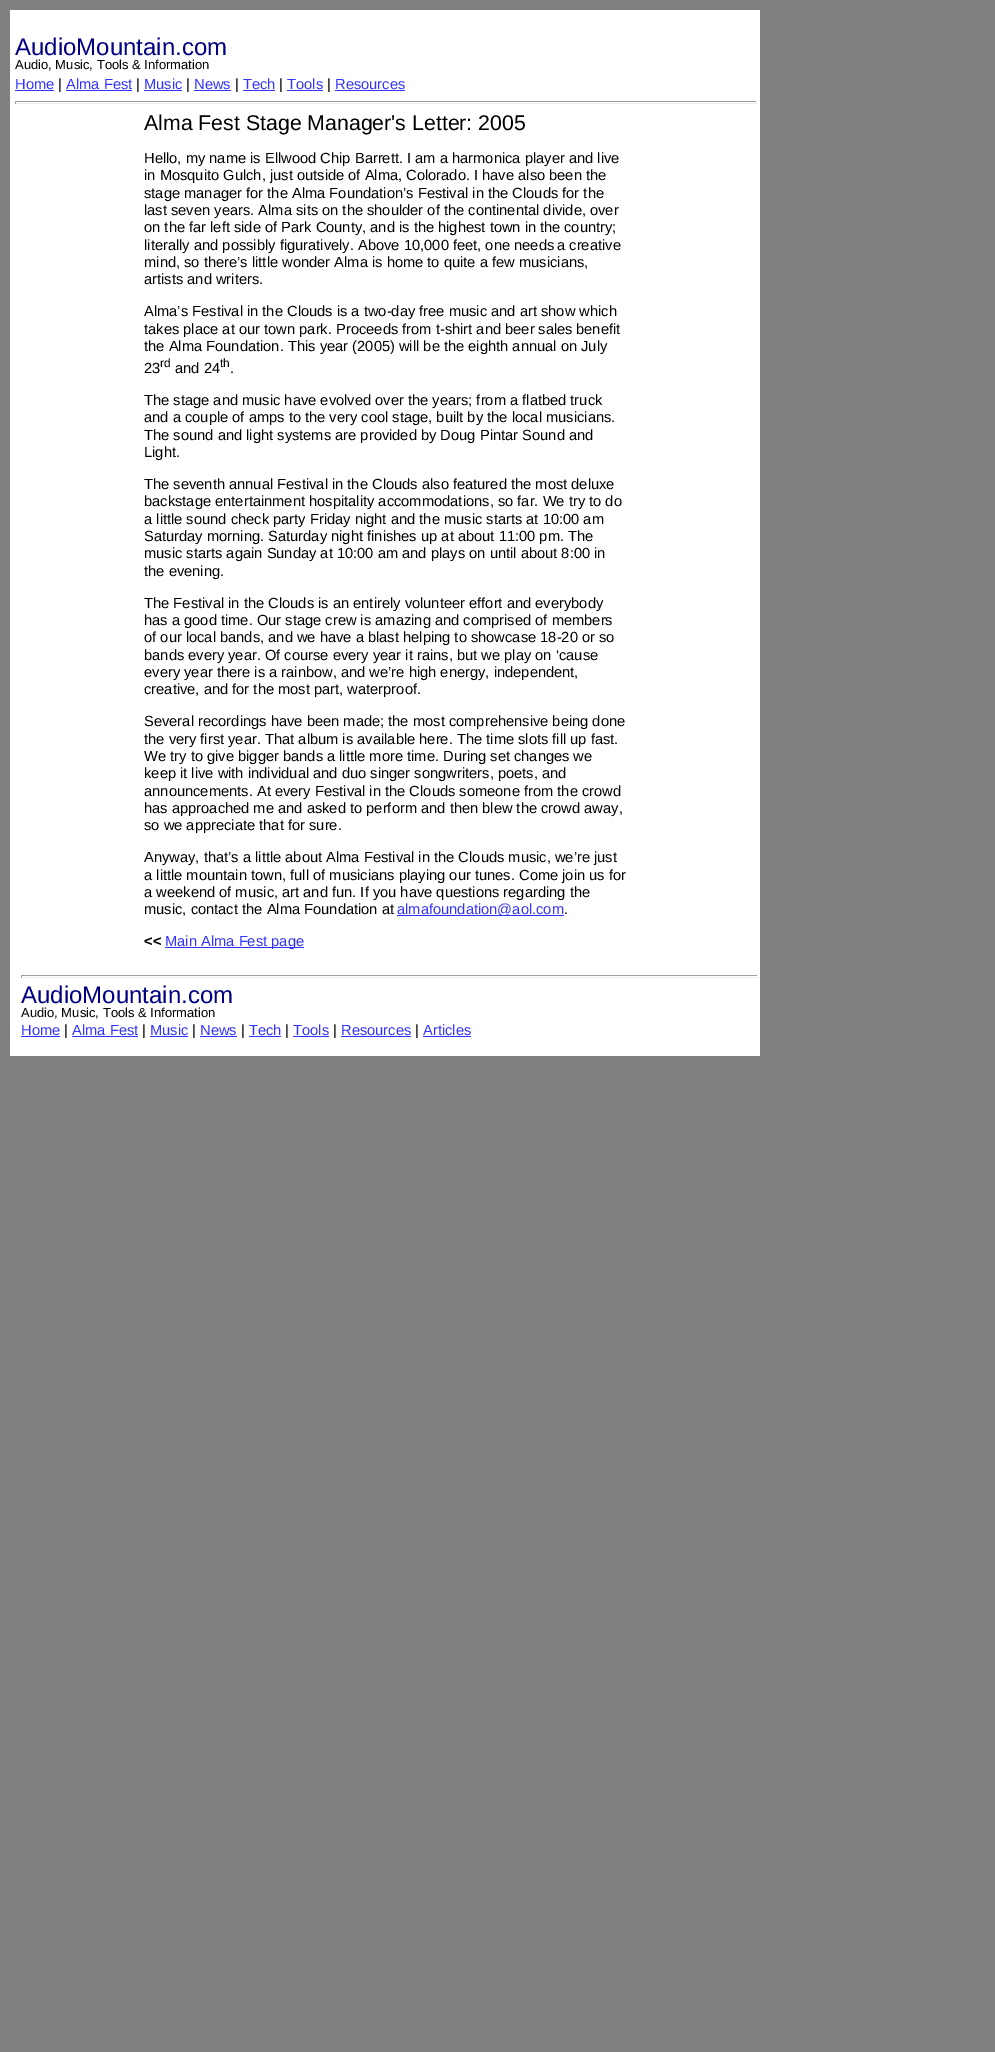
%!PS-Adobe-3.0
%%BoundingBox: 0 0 995 2052
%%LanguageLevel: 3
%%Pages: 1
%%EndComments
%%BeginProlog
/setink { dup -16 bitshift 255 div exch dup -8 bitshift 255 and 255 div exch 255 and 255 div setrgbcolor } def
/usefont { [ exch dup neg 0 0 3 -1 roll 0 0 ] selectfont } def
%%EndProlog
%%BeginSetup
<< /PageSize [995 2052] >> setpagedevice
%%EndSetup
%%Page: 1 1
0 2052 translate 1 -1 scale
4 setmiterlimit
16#808080 setink
0 0 995 2052 rectfill
16#FFFFFF setink
10 10 750 1046 rectfill
/LiberationSans-Regular 24 usefont
16#000080 setink
15 55 moveto (AudioMountain.com) show
/LiberationSans-Regular 13 usefont
16#000000 setink
15 69 moveto (Audio, Music, Tools & Information) show
/LiberationSans-Regular 14.7 usefont
16#3333FF setink
15 89 moveto (Home) show
15 90 39 1 rectfill
16#000000 setink
58 89 moveto (|) show
16#3333FF setink
66 89 moveto (Alma Fest) show
66 90 66 1 rectfill
16#000000 setink
136 89 moveto (|) show
16#3333FF setink
144 89 moveto (Music) show
144 90 38 1 rectfill
16#000000 setink
186 89 moveto (|) show
16#3333FF setink
194 89 moveto (News) show
194 90 37 1 rectfill
16#000000 setink
235 89 moveto (|) show
16#3333FF setink
243 89 moveto (Tech) show
243 90 32 1 rectfill
16#000000 setink
279 89 moveto (|) show
16#3333FF setink
287 89 moveto (Tools) show
287 90 36 1 rectfill
16#000000 setink
327 89 moveto (|) show
16#3333FF setink
335 89 moveto (Resources) show
[
    [335 90 70 1 16#3333FF]
    [15 101 742 1 16#9F9F9F]
    [756 101 1 3 16#EEEEEE]
    [15 103 742 1 16#EEEEEE]
    [15 101 1 3 16#9F9F9F]
] { aload pop setink rectfill } forall
/LiberationSans-Regular 21.3 usefont
16#000000 setink
144 130 moveto (Alma Fest Stage Manager's Letter: 2005) show
/LiberationSans-Regular 14.7 usefont
[
    [(Hello, my name is Ellwood Chip Barrett. I am a harmonica player and live) 144 163]
    [(in Mosquito Gulch, just outside of Alma, Colorado. I have also been the) 144 180]
    [(stage manager for the Alma Foundation’s Festival in the Clouds for the) 144 198]
    [(last seven years. Alma sits on the shoulder of the continental divide, over) 144 215]
    [(on the far left side of Park County, and is the highest town in the) 144 232]
    [(country;) 564 232]
    [(literally and possibly figuratively. Above 10,000 feet, one needs) 144 250]
    [(a creative) 557 250]
    [(mind, so there’s little wonder Alma is home to quite a few musicians,) 144 267]
    [(artists and writers.) 144 284]
    [(Alma’s Festival in the Clouds is a two-day free music and art show which) 144 316]
    [(takes place at our town park. Proceeds from t-shirt and beer sales) 144 334]
    [(benefit) 576 334]
    [(the Alma Foundation. This year \(2005\) will be the eighth annual on July) 144 351]
    [(23) 144 373]
] { aload pop moveto show } forall
/LiberationSans-Regular 12 usefont
160 367 moveto (rd) show
/LiberationSans-Regular 14.7 usefont
175 373 moveto (and 24) show
/LiberationSans-Regular 12 usefont
220 367 moveto (th) show
/LiberationSans-Regular 14.7 usefont
[
    [(.) 230 373]
    [(The stage and music have evolved over the years; from a flatbed truck) 144 405]
    [(and a couple of amps to the very cool stage, built by the local musicians.) 144 422]
    [(The sound and light systems are provided by Doug Pintar Sound and) 144 440]
    [(Light.) 144 457]
    [(The seventh annual Festival in the Clouds also featured the most deluxe) 144 489]
    [(backstage entertainment hospitality accommodations, so far. We try to do) 144 506]
    [(a little sound check party Friday night and the music starts at 10:00 am) 144 524]
    [(Saturday morning. Saturday night finishes up at about 11:00 pm. The) 144 541]
    [(music starts again Sunday at 10:00 am and plays on until about 8:00 in) 144 558]
    [(the evening.) 144 576]
    [(The Festival in the Clouds is an entirely volunteer effort and everybody) 144 608]
    [(has a good time. Our stage crew is amazing and comprised of members) 144 625]
    [(of our local bands, and we have a blast helping to showcase 18-20 or so) 144 642]
    [(bands every year. Of course every year it rains, but we play on ‘cause) 144 660]
    [(every year there is a rainbow, and we’re high energy, independent,) 144 677]
    [(creative, and for the most part, waterproof.) 144 694]
    [(Several recordings have been made; the most comprehensive being done) 144 726]
    [(the very first year. That album is available here. The time slots fill up fast.) 144 744]
    [(We try to give bigger bands a little more time. During set changes) 144 761]
    [(we) 573 761]
    [(keep it live with individual and duo singer songwriters, poets, and) 144 778]
    [(announcements. At every Festival in the Clouds someone from the crowd) 144 796]
    [(has approached me and asked to perform and then blew the crowd away,) 144 813]
    [(so we appreciate that for sure.) 144 830]
    [(Anyway, that’s a little about Alma Festival in the Clouds music, we’re just) 144 862]
    [(a little mountain town, full of musicians playing our tunes. Come join us for) 144 880]
    [(a weekend of music, art and fun. If you have questions regarding the) 144 897]
    [(music, contact the Alma Foundation at) 144 914]
] { aload pop moveto show } forall
16#3333FF setink
397 915 167 1 rectfill
397 914 moveto (almafoundation@aol.com) show
16#000000 setink
564 914 moveto (.) show
/LiberationSans-Bold 14.7 usefont
144 946 moveto (<<) show
16#3333FF setink
165 947 139 1 rectfill
/LiberationSans-Regular 14.7 usefont
165 946 moveto (Main Alma Fest page) show
[
    [21 975 737 1 16#9F9F9F]
    [757 975 1 3 16#EEEEEE]
    [21 977 737 1 16#EEEEEE]
    [21 975 1 3 16#9F9F9F]
] { aload pop setink rectfill } forall
/LiberationSans-Regular 24 usefont
16#000080 setink
21 1003 moveto (AudioMountain.com) show
/LiberationSans-Regular 13 usefont
16#000000 setink
21 1017 moveto (Audio, Music, Tools & Information) show
/LiberationSans-Regular 14.7 usefont
16#3333FF setink
21 1035 moveto (Home) show
21 1036 39 1 rectfill
16#000000 setink
64 1035 moveto (|) show
16#3333FF setink
72 1035 moveto (Alma Fest) show
72 1036 66 1 rectfill
16#000000 setink
142 1035 moveto (|) show
16#3333FF setink
150 1035 moveto (Music) show
150 1036 38 1 rectfill
16#000000 setink
192 1035 moveto (|) show
16#3333FF setink
200 1035 moveto (News) show
200 1036 37 1 rectfill
16#000000 setink
241 1035 moveto (|) show
16#3333FF setink
249 1035 moveto (Tech) show
249 1036 32 1 rectfill
16#000000 setink
285 1035 moveto (|) show
16#3333FF setink
293 1035 moveto (Tools) show
293 1036 36 1 rectfill
16#000000 setink
333 1035 moveto (|) show
16#3333FF setink
341 1035 moveto (Resources) show
341 1036 70 1 rectfill
16#000000 setink
415 1035 moveto (|) show
16#3333FF setink
423 1035 moveto (Articles) show
423 1036 48 1 rectfill
showpage
%%EOF
